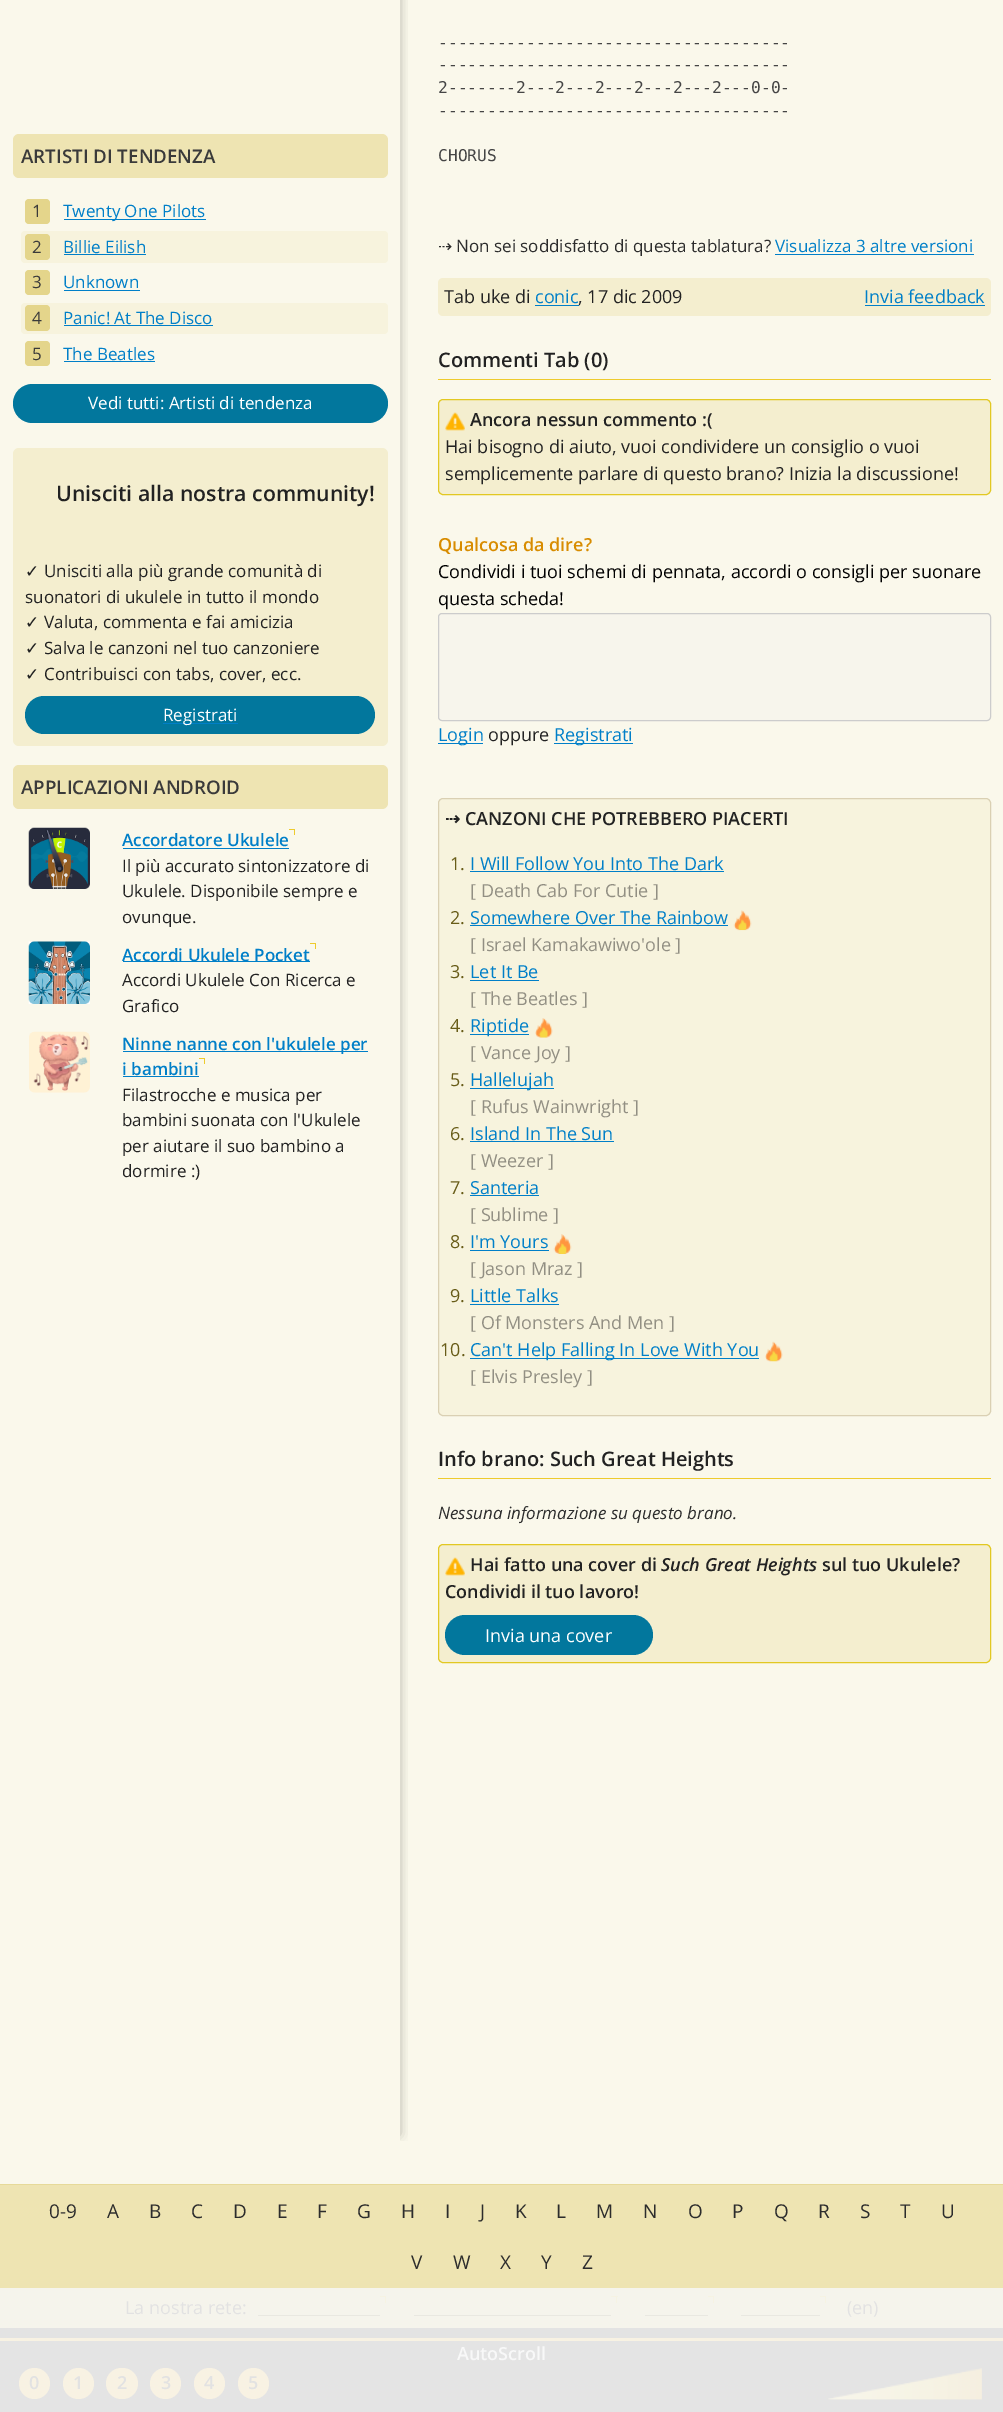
%!PS-Adobe-3.0
%%BoundingBox: 0 0 1003 2412
%%LanguageLevel: 3
%%Pages: 1
%%EndComments
%%BeginProlog
/setink { dup -16 bitshift 255 div exch dup -8 bitshift 255 and 255 div exch 255 and 255 div setrgbcolor } def
/usefont { [ exch dup neg 0 0 3 -1 roll 0 0 ] selectfont } def
/setalpha { dup .setfillconstantalpha .setstrokeconstantalpha } def
/disc { newpath 0 360 arc closepath } def
/rrect { 5 dict begin { /r /h /w /y /x } { exch def } forall
  x r add y moveto x w add y 2 copy h add r arct x w add y h add x 1 index r arct
  x y h add x y r arct x y 2 copy exch w add exch r arct closepath end } def
/softshadow { 12 dict begin { /a /b /q /h /w /y /x } { exch def } forall gsave /was 0 def
  9 -2 -9 { dup b mul 4 div /e exch def 1 sub .425 mul 2.718 exch exp 1 add a .99 .min exch div /now exch def
    1 1 now sub 1 was sub div sub setalpha /was now def
    w h .min e 2 mul add 0 gt { x e sub y e sub w e 2 mul add h e 2 mul add
      q e add b .6 mul add w h .min 2 div e add .min 0 .max rrect fill } if } for grestore end } def
/drawimage { 5 dict begin { /h /w /y /x /name } { exch def } forall
  gsave x y translate w h scale
  w h 8 [w 0 0 h 0 0] name (r) file false 3 colorimage grestore end } def
%%EndProlog
%%BeginSetup
<< /PageSize [1003 2412] /PageUsesTransparency true >> setpagedevice
%%EndSetup
%%Page: 1 1
0 .pushpdf14devicefilter
0 2412 translate 1 -1 scale
4 setmiterlimit
16#FAF8EB setink
0 0 1003 2412 rectfill
/DejaVuSansMono-Regular 16.25 usefont
16#454545 setink
[
    [(------------------------------------) 438 48]
    [(------------------------------------) 438 70]
    [(2-------2---2---2---2---2---2---0-0-) 438 93]
    [(------------------------------------) 438 116]
    [(CHORUS) 438 161]
] { aload pop moveto show } forall
16#E4E4E4 setink
0 2341 1003 71 rectfill
16#F8F2E3 setink
0 2338 1003 3 rectfill
/OpenSans-SemiBold 18 usefont
16#F8F8F8 setink
457 2360 moveto (AutoScroll) show
16#F8F2E3 setink
34.5 2383.5 15.5 disc fill
16#E2E2E2 setink
29 2389 moveto (0) show
16#F8F2E3 setink
78.5 2383.5 15.5 disc fill
16#E2E2E2 setink
73 2389 moveto (1) show
16#F8F2E3 setink
106 2368 32 31 15.5 rrect fill
16#E2E2E2 setink
117 2389 moveto (2) show
16#F8F2E3 setink
165.5 2383.5 15.5 disc fill
16#E2E2E2 setink
161 2389 moveto (3) show
16#F8F2E3 setink
209.5 2383.5 15.5 disc fill
16#E2E2E2 setink
204 2389 moveto (4) show
16#F8F2E3 setink
253.5 2383.5 15.5 disc fill
16#E2E2E2 setink
248 2389 moveto (5) show
(img1.raw) 828 2368 154 32 drawimage
/DejaVuSans-Regular 17 usefont
16#2C2C2C setink
438 252 moveto (⇢) show
/OpenSans-Regular 17 usefont
456 252 moveto (Non sei soddisfatto di questa tablatura?) show
16#007FC8 setink
775 252 moveto (Visualizza 3 altre versioni) show
775 254 199 1 rectfill
16#F4EECF setink
438 278 553 38 5 rrect fill
/OpenSans-Regular 18 usefont
16#222222 setink
444 303 moveto (Tab uke di) show
16#007FC8 setink
535 303 moveto (conic) show
535 305 44 1 rectfill
16#222222 setink
578 303 moveto (, 17 dic 2009) show
16#007FC8 setink
864 303 moveto (Invia feedback) show
865 305 120 1 rectfill
16#EECB2D setink
438 379 553 1 rectfill
/OpenSans-SemiBold 20 usefont
16#222222 setink
438 367 moveto (Commenti Tab \(0\)) show
16#F4EECF setink
438.5 399.5 552 95 4.5 rrect gsave fill grestore
16#E2C822 setink
stroke
(img2.raw) 445 412 20 19 drawimage
/OpenSans-SemiBold 18 usefont
16#222222 setink
470 426 moveto (Ancora nessun commento :\() show
/OpenSans-Regular 18 usefont
445 453 moveto (Hai bisogno di aiuto, vuoi condividere un consiglio o vuoi) show
445 480 moveto (semplicemente parlare di questo brano? Inizia la discussione!) show
/OpenSans-SemiBold 18 usefont
16#D88C00 setink
438 551 moveto (Qualcosa da dire?) show
/OpenSans-Regular 18 usefont
16#000000 setink
438 578 moveto (Condividi i tuoi schemi di pennata, accordi o consigli per suonare) show
438 605 moveto (questa scheda!) show
16#F7F5EC setink
438.5 613.5 552 107 3.5 rrect gsave fill grestore
16#CCCCCC setink
stroke
16#007FC8 setink
438 743 45 1 rectfill
438 741 moveto (Login) show
16#222222 setink
488 741 moveto (oppure) show
16#007FC8 setink
554 743 79 1 rectfill
554 741 moveto (Registrati) show
16#F7F3DD setink
438.5 798.5 552 617 4.5 rrect gsave fill grestore
16#DAD0B3 setink
stroke
/DejaVuSans-Bold 18 usefont
16#222222 setink
445 825 moveto (⇢) show
/OpenSans-SemiBold 18 usefont
465 825 moveto (CANZONI CHE POTREBBERO PIACERTI) show
/OpenSans-Regular 18 usefont
16#685C18 setink
450 870 moveto (1.) show
16#007FC8 setink
470 870 moveto (I Will Follow You Into The Dark) show
470 871 254 1 rectfill
16#928F83 setink
470 897 moveto ([ Death Cab For Cutie ]) show
16#685C18 setink
450 924 moveto (2.) show
16#007FC8 setink
470 924 moveto (Somewhere Over The Rainbow) show
470 925 258 1 rectfill
(img3.raw) 733 910 19 21 drawimage
16#928F83 setink
470 951 moveto ([ Israel Kamakawiwo'ole ]) show
16#685C18 setink
450 978 moveto (3.) show
16#007FC8 setink
470 978 moveto (Let It Be) show
470 980 69 1 rectfill
16#928F83 setink
470 1005 moveto ([ The Beatles ]) show
16#685C18 setink
450 1032 moveto (4.) show
16#007FC8 setink
470 1034 59 1 rectfill
470 1032 moveto (Riptide) show
(img4.raw) 535 1018 18 20 drawimage
16#928F83 setink
470 1059 moveto ([ Vance Joy ]) show
16#685C18 setink
450 1086 moveto (5.) show
16#007FC8 setink
470 1088 84 1 rectfill
470 1086 moveto (Hallelujah) show
16#928F83 setink
470 1113 moveto ([ Rufus Wainwright ]) show
16#685C18 setink
450 1140 moveto (6.) show
16#007FC8 setink
470 1140 moveto (Island In The Sun) show
470 1141 144 1 rectfill
16#928F83 setink
470 1167 moveto ([ Weezer ]) show
16#685C18 setink
450 1194 moveto (7.) show
16#007FC8 setink
470 1194 moveto (Santeria) show
470 1195 69 1 rectfill
16#928F83 setink
470 1221 moveto ([ Sublime ]) show
16#685C18 setink
450 1248 moveto (8.) show
16#007FC8 setink
470 1248 moveto (I'm Yours) show
470 1250 79 1 rectfill
(img5.raw) 553 1234 19 20 drawimage
16#928F83 setink
470 1275 moveto ([ Jason Mraz ]) show
16#685C18 setink
450 1302 moveto (9.) show
16#007FC8 setink
470 1302 moveto (Little Talks) show
470 1304 89 1 rectfill
16#928F83 setink
470 1329 moveto ([ Of Monsters And Men ]) show
16#685C18 setink
440 1356 moveto (10.) show
16#007FC8 setink
470 1358 289 1 rectfill
470 1356 moveto (Can't Help Falling In Love With You) show
(img6.raw) 765 1341 18 21 drawimage
16#928F83 setink
470 1383 moveto ([ Elvis Presley ]) show
16#EECB2D setink
438 1478 553 1 rectfill
/OpenSans-SemiBold 20 usefont
16#222222 setink
438 1466 moveto (Info brano: Such Great Heights) show
/OpenSans-Italic 17 usefont
16#2C2C2C setink
438 1519 moveto (Nessuna informazione su questo brano.) show
16#F4EECF setink
438.5 1544.5 552 118 4.5 rrect gsave fill grestore
16#E2C822 setink
stroke
(img2.raw) 445 1557 20 19 drawimage
/OpenSans-SemiBold 18 usefont
16#222222 setink
470 1571 moveto (Hai fatto una cover di) show
/OpenSans-SemiBoldItalic 18 usefont
661 1571 moveto (Such Great Heights) show
/OpenSans-SemiBold 18 usefont
822 1571 moveto (sul tuo Ukulele?) show
445 1598 moveto (Condividi il tuo lavoro!) show
16#02779D setink
445 1615 208 40 20 rrect fill
/OpenSans-Regular 18 usefont
16#FFFFFF setink
485 1642 moveto (Invia una cover) show
gsave
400 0 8 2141 rectclip
16#333333 setink
23 -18 375 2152 0 6 0.5 softshadow
grestore
16#EEE4B2 setink
13 134 375 44 6 rrect fill
/OpenSans-SemiBold 18.75 usefont
16#3A3A3A setink
21 163 moveto (ARTISTI DI TENDENZA) show
16#E4D58B setink
25 199 25 25 4 rrect fill
/OpenSans-Regular 17 usefont
16#3A3A3A setink
32 217 moveto (1) show
16#007FC8 setink
64 219 142 1 rectfill
63 217 moveto (Twenty One Pilots) show
16#F7F3DD setink
21 231 367 32 4 rrect fill
16#E4D58B setink
25 234 25 26 4 rrect fill
16#3A3A3A setink
32 253 moveto (2) show
16#007FC8 setink
63 253 moveto (Billie Eilish) show
64 254 82 1 rectfill
16#E4D58B setink
25 270 25 25 4 rrect fill
16#3A3A3A setink
32 288 moveto (3) show
16#007FC8 setink
63 288 moveto (Unknown) show
64 290 76 1 rectfill
16#F7F3DD setink
21 303 367 31 4 rrect fill
16#E4D58B setink
25 305 25 26 4 rrect fill
16#3A3A3A setink
32 324 moveto (4) show
16#007FC8 setink
63 324 moveto (Panic! At The Disco) show
64 325 149 1 rectfill
16#E4D58B setink
25 341 25 25 4 rrect fill
16#3A3A3A setink
32 360 moveto (5) show
16#007FC8 setink
63 360 moveto (The Beatles) show
64 361 91 1 rectfill
16#02779D setink
13 384 375 39 19.5 rrect fill
16#FFFFFF setink
88 409 moveto (Vedi tutti: Artisti di tendenza) show
16#F4EECF setink
13 448 375 298 6 rrect fill
/OpenSans-SemiBold 21.25 usefont
16#222222 setink
56 501 moveto (Unisciti alla nostra community!) show
/DejaVuSans-Regular 17 usefont
25 577 moveto (✓) show
/OpenSans-Regular 17 usefont
44 577 moveto (Unisciti alla più grande comunità di) show
25 603 moveto (suonatori di ukulele in tutto il mondo) show
/DejaVuSans-Regular 17 usefont
25 628 moveto (✓) show
/OpenSans-Regular 17 usefont
44 628 moveto (Valuta, commenta e fai amicizia) show
/DejaVuSans-Regular 17 usefont
25 654 moveto (✓) show
/OpenSans-Regular 17 usefont
44 654 moveto (Salva le canzoni nel tuo canzoniere) show
/DejaVuSans-Regular 17 usefont
25 680 moveto (✓) show
/OpenSans-Regular 17 usefont
44 680 moveto (Contribuisci con tabs, cover, ecc.) show
16#02779D setink
25 696 350 38 19 rrect fill
16#007FC8 setink
163 723 75 1 rectfill
16#FFFFFF setink
163 721 moveto (Registrati) show
16#EEE4B2 setink
13 765 375 44 6 rrect fill
/OpenSans-SemiBold 18.75 usefont
16#3A3A3A setink
21 794 moveto (APPLICAZIONI ANDROID) show
(img7.raw) 28 827 62 62 drawimage
16#EECB2D setink
289 829 6 1 rectfill
294 829 1 6 rectfill
/OpenSans-SemiBold 17 usefont
16#007FC8 setink
122 846 moveto (Accordatore Ukulele) show
123 848 166 1 rectfill
/OpenSans-Regular 17 usefont
16#222222 setink
[
    [(Il più accurato sintonizzatore di) 122 872]
    [(Ukulele. Disponibile sempre e) 122 897]
    [(ovunque.) 122 923]
] { aload pop moveto show } forall
(img8.raw) 28 941 62 63 drawimage
[
    [310 943 6 1 16#EECB2D]
    [315 943 1 6 16#EECB2D]
    [123 961 187 1 16#007FC8]
] { aload pop setink rectfill } forall
/OpenSans-SemiBold 17 usefont
122 961 moveto (Accordi Ukulele Pocket) show
/OpenSans-Regular 17 usefont
16#222222 setink
122 986 moveto (Accordi Ukulele Con Ricerca e) show
122 1012 moveto (Grafico) show
(img9.raw) 29 1031 61 62 drawimage
16#007FC8 setink
123 1051 245 1 rectfill
/OpenSans-SemiBold 17 usefont
122 1050 moveto (Ninne nanne con l'ukulele per) show
16#EECB2D setink
199 1058 6 1 rectfill
204 1058 1 6 rectfill
16#007FC8 setink
122 1075 moveto (i bambini) show
123 1076 76 1 rectfill
/OpenSans-Regular 17 usefont
16#222222 setink
[
    [(Filastrocche e musica per) 122 1101]
    [(bambini suonata con l'Ukulele) 122 1126]
    [(per aiutare il suo bambino a) 122 1152]
    [(dormire :\)) 122 1177]
] { aload pop moveto show } forall
16#EEE4B2 setink
0 2185 1003 103 rectfill
16#E7DA99 setink
0 2184 1003 1 rectfill
/OpenSans-Regular 19 usefont
16#2C2C2C setink
[
    [(0-9) 49 2218]
    [(A) 107 2218]
    [(B) 149 2218]
    [(C) 191 2218]
    [(D) 233 2218]
    [(E) 277 2218]
    [(F) 317 2218]
    [(G) 357 2218]
    [(H) 401 2218]
    [(I) 445 2218]
    [(J) 480 2218]
    [(K) 515 2218]
    [(L) 556 2218]
    [(M) 596 2218]
    [(N) 643 2218]
    [(O) 688 2218]
    [(P) 732 2218]
    [(Q) 774 2218]
    [(R) 818 2218]
    [(S) 860 2218]
    [(T) 900 2218]
    [(U) 941 2218]
    [(V) 411 2269]
    [(W) 453 2269]
    [(X) 500 2269]
    [(Y) 541 2269]
    [(Z) 582 2269]
] { aload pop moveto show } forall
16#F5F4EC setink
0 2288 1003 40 rectfill
/OpenSans-Regular 18 usefont
16#E2E2E2 setink
125 2314 moveto (La nostra rete:) show
[
    [380 2296 6 1 16#F6F3E3]
    [385 2296 1 7 16#F6F3E3]
    [258 2315 122 1 16#E9E8E1]
    [611 2296 7 1 16#F6F3E3]
    [616 2296 1 7 16#F6F3E3]
    [414 2315 197 1 16#E9E8E1]
    [708 2296 6 1 16#F6F3E3]
    [713 2296 1 7 16#F6F3E3]
    [645 2315 63 1 16#E9E8E1]
    [820 2296 6 1 16#F6F3E3]
    [825 2296 1 7 16#F6F3E3]
    [741 2315 79 1 16#E9E8E1]
] { aload pop setink rectfill } forall
16#E2E2E2 setink
847 2314 moveto (\(en\)) show
16#E3E3E3 setink
0 2328 1003 10 rectfill
.poppdf14devicefilter showpage
%%EOF
